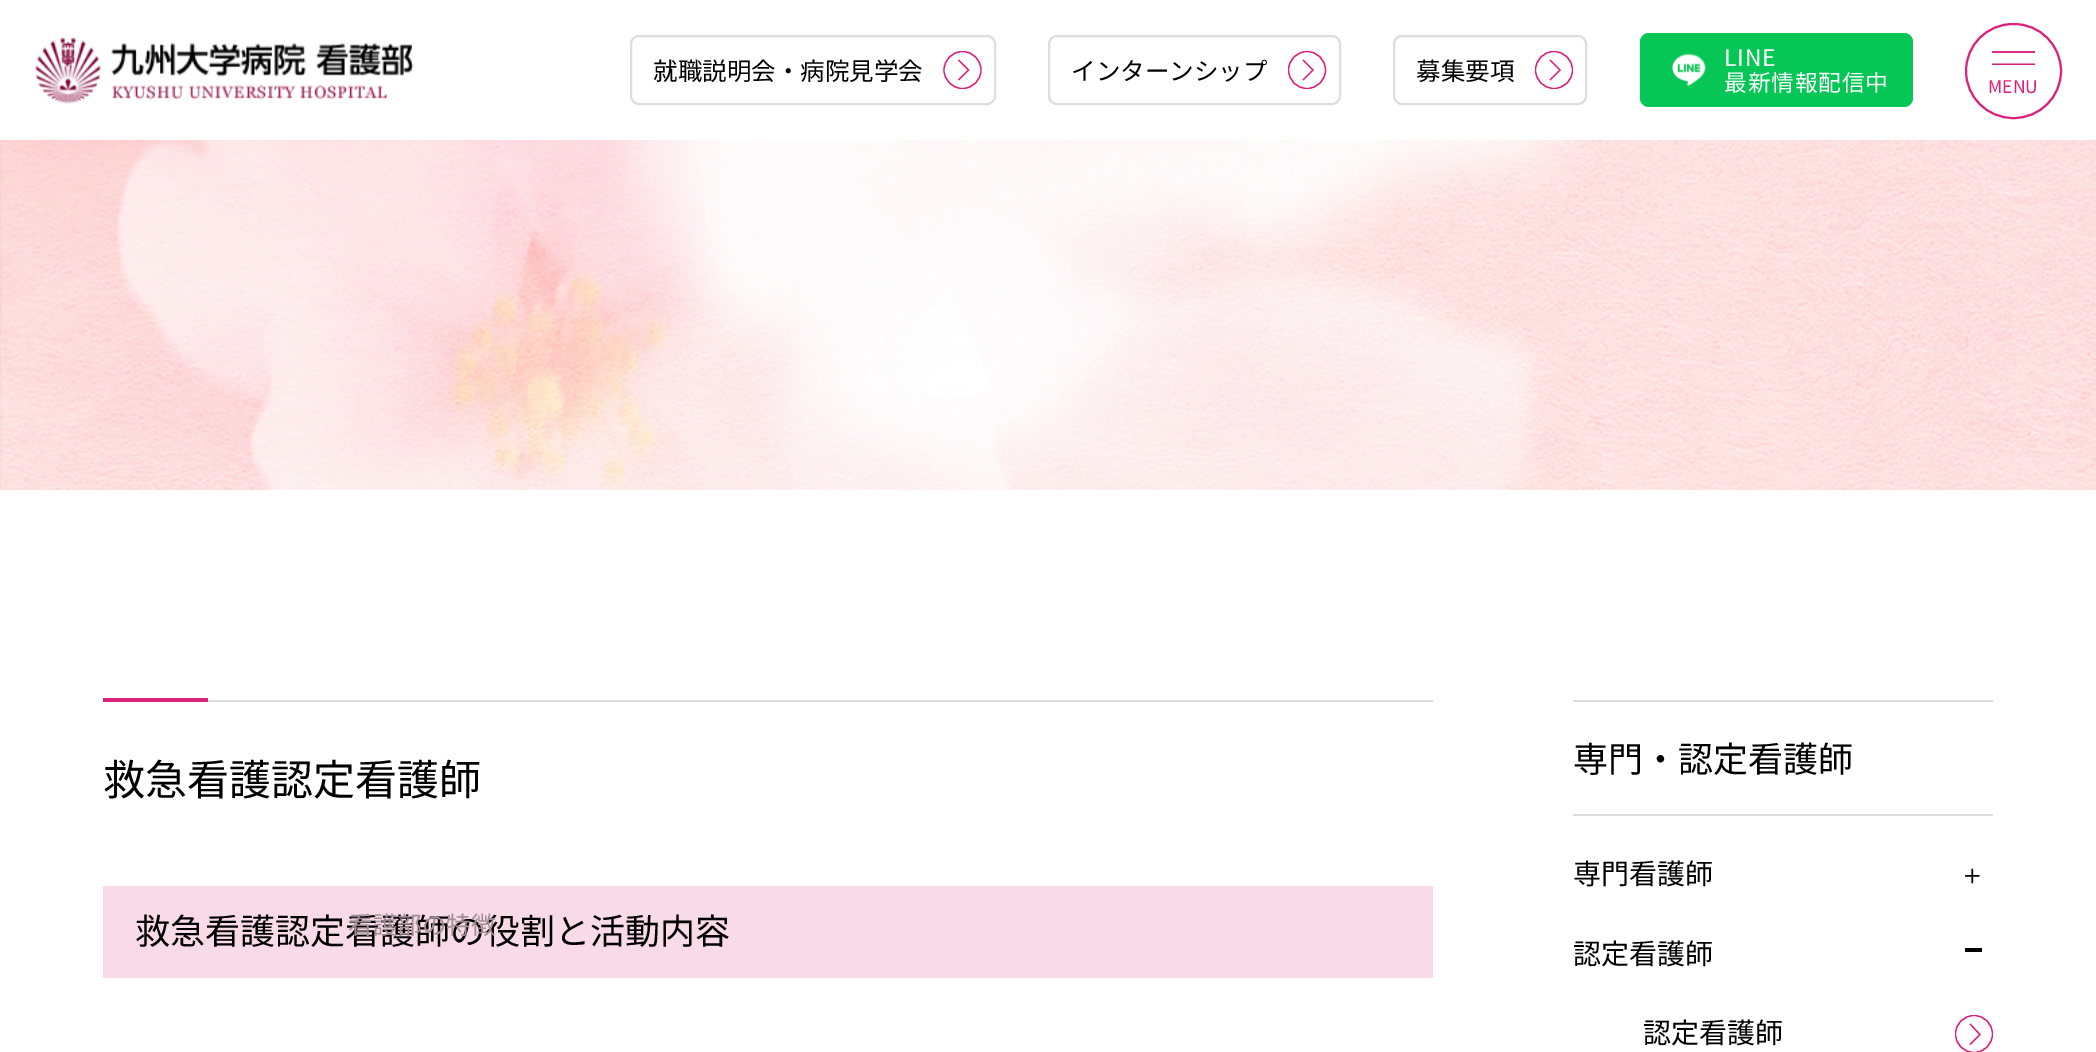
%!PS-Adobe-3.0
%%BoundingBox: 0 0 2096 1052
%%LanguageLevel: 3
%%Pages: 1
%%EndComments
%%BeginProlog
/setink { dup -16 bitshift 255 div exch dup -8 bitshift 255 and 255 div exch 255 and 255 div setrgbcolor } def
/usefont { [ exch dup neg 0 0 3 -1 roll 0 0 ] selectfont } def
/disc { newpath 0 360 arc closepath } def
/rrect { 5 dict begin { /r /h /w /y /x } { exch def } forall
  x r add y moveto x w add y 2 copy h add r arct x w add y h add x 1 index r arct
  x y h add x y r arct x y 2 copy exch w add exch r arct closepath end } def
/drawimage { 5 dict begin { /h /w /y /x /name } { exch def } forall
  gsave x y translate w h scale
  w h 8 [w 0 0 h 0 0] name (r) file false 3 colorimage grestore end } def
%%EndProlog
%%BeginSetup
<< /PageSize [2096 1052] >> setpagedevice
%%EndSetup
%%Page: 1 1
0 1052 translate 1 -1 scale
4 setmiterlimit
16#FFFFFF setink
0 0 2096 1052 rectfill
(img1.raw) 35 37 379 67 drawimage
gsave
943 51 39 38 rectclip
16#DA227D setink
1.3 setlinewidth
962.5 70 18.5 disc stroke
grestore
16#DA227D setink
1.3 setlinewidth
958.5 60 moveto 968.5 70 lineto 958.5 80 lineto stroke
16#DDDDDD setink
2 setlinewidth
631 36 364 68 8 rrect stroke
/NotoSansJP-Regular 24.5 usefont
16#000000 setink
653 80 moveto (就職説明会・病院見学会) show
gsave
1288 51 39 38 rectclip
16#DA227D setink
1.3 setlinewidth
1307 70 18.5 disc stroke
grestore
16#DA227D setink
1.3 setlinewidth
1303 60 moveto 1313 70 lineto 1303 80 lineto stroke
16#DDDDDD setink
2 setlinewidth
1049 36 291 68 8 rrect stroke
16#000000 setink
1071 80 moveto (インターンシップ) show
gsave
1535 51 38 38 rectclip
16#DA227D setink
1.3 setlinewidth
1554 70 18.5 disc stroke
grestore
16#DA227D setink
1.3 setlinewidth
1550 60 moveto 1560 70 lineto 1550 80 lineto stroke
16#DDDDDD setink
2 setlinewidth
1394 36 192 68 8 rrect stroke
16#000000 setink
1416 80 moveto (募集要項) show
16#06C755 setink
1640 33 273 74 9 rrect fill
(img2.raw) 1672 53 34 33 drawimage
/NotoSansJP-Regular 22.75 usefont
16#FFFFFF setink
1724 66 moveto 0.75 0 (LINE) ashow
1724 91 moveto 0.75 0 (最新情報配信中) ashow
16#DA227D setink
1966 24 95 94 47 rrect stroke
gsave
1992 51 43 14 rectclip
1.9 setlinewidth
1991.5 64.5 moveto 2035 64.5 lineto stroke
grestore
16#DC2D84 setink
1992 51 43 2 rectfill
/NotoSansJP-Regular 17.5 usefont
16#DA227D setink
1988 93 moveto (MENU) show
16#F9DAE9 setink
103 886 1330 92 rectfill
/NotoSansJP-Regular 35 usefont
16#000000 setink
135 944 moveto (救急看護認定看護師の役割と活動内容) show
/NotoSansJP-Regular 24.5 usefont
16#A28E97 setink
348 934 moveto (看護部の特徴) show
(img3.raw) 0 140 2096 350 drawimage
16#DDDDDD setink
208 700 1225 2 rectfill
16#DA227D setink
103 698 105 4 rectfill
/NotoSansJP-Regular 42 usefont
16#000000 setink
103 795 moveto (救急看護認定看護師) show
16#DDDDDD setink
1573 700 420 2 rectfill
1573 814 420 2 rectfill
/NotoSansJP-Regular 35 usefont
16#000000 setink
1573 772 moveto (専門・認定看護師) show
(img4.raw) 1965 868 15 16 drawimage
/NotoSansJP-Regular 28 usefont
1573 884 moveto (専門看護師) show
1965 948 17 4 rectfill
1573 964 moveto (認定看護師) show
gsave
1955 1015 38 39 rectclip
16#DA227D setink
1.3 setlinewidth
1974 1034 18.5 disc stroke
grestore
16#DA227D setink
1.3 setlinewidth
1970 1024 moveto 1980 1034.5 lineto 1970 1044.5 lineto stroke
16#000000 setink
1643 1043 moveto (認定看護師) show
showpage
%%EOF
